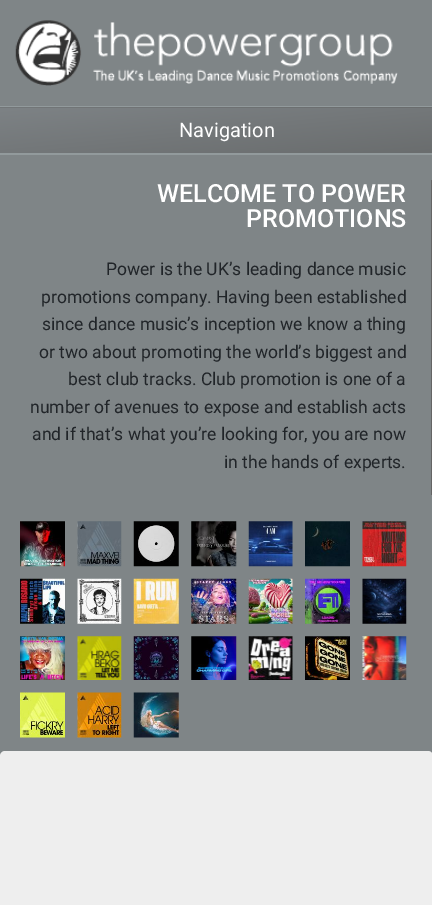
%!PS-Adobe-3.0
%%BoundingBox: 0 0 432 905
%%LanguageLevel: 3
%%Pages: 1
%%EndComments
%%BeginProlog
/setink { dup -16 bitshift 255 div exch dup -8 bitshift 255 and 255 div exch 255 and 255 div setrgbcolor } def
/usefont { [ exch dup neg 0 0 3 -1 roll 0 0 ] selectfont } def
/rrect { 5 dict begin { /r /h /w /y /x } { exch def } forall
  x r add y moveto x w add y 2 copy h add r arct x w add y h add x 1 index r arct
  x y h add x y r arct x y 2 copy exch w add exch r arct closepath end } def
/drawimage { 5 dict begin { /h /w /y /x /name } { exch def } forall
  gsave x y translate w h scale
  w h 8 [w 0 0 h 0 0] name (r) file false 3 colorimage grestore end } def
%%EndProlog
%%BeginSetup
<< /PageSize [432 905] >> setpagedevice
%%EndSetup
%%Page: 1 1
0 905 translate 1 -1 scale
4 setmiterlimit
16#7F8587 setink
0 0 432 905 rectfill
16#929A9C setink
0 153 432 2 rectfill
(img1.raw) 15 20 383 66 drawimage
gsave 0 107 moveto 432 107 lineto 432 108 lineto 0 108 lineto closepath clip newpath
<< /ShadingType 2 /ColorSpace /DeviceRGB /Coords [212 40 221 130] /Extend [true true] /Function << /FunctionType 2 /Domain [0 1] /C0 [0.49 0.51 0.522] /C1 [0.416 0.427 0.431] /N 1 >> >> shfill grestore
gsave 0 108 moveto 432 108 lineto 432 153 lineto 0 153 lineto closepath clip newpath
<< /ShadingType 2 /ColorSpace /DeviceRGB /Coords [212 85 221 175] /Extend [true true] /Function << /FunctionType 2 /Domain [0 1] /C0 [0.49 0.51 0.522] /C1 [0.416 0.427 0.431] /N 1 >> >> shfill grestore
0 106 432 1 rectfill
/Roboto-Regular 20 usefont
16#FFFFFF setink
179 137 moveto (Navigation) show
16#646464 setink
431 180 1 315 rectfill
/Roboto-Medium 25 usefont
16#FFFFFF setink
157 202 moveto (WELCOME TO POWER) show
246 227 moveto (PROMOTIONS) show
/Roboto-Regular 17.5 usefont
16#212529 setink
[
    [(Power is the UK’s leading dance music) 106 275]
    [(promotions company. Having been established) 41 303]
    [(since dance music’s inception we know a thing) 42 330]
    [(or two about promoting the world’s biggest and) 39 358]
    [(best club tracks. Club promotion is one of a) 68 385]
    [(number of avenues to expose and establish acts) 30 413]
    [(and if that’s what you’re looking for, you are now) 32 440]
    [(in the hands of experts.) 224 468]
] { aload pop moveto show } forall
(img2.raw) 20 521 45 46 drawimage
(img3.raw) 77 521 45 46 drawimage
(img4.raw) 133 521 46 46 drawimage
(img5.raw) 191 521 46 46 drawimage
(img6.raw) 248 521 45 46 drawimage
(img7.raw) 305 521 45 46 drawimage
(img8.raw) 362 521 45 46 drawimage
(img9.raw) 20 578 45 46 drawimage
(img10.raw) 77 578 45 46 drawimage
(img11.raw) 133 578 46 46 drawimage
(img12.raw) 191 578 46 46 drawimage
(img13.raw) 248 578 45 46 drawimage
(img14.raw) 305 578 45 46 drawimage
(img15.raw) 362 578 45 46 drawimage
(img16.raw) 20 636 45 44 drawimage
(img17.raw) 77 636 45 44 drawimage
(img18.raw) 133 636 46 44 drawimage
(img19.raw) 191 636 46 44 drawimage
(img20.raw) 248 636 45 44 drawimage
(img21.raw) 305 636 45 44 drawimage
(img22.raw) 362 636 45 44 drawimage
(img23.raw) 20 692 45 46 drawimage
(img24.raw) 77 692 45 46 drawimage
(img25.raw) 133 692 46 46 drawimage
16#EEEEEE setink
0 751 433 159 5 rrect fill
showpage
%%EOF
